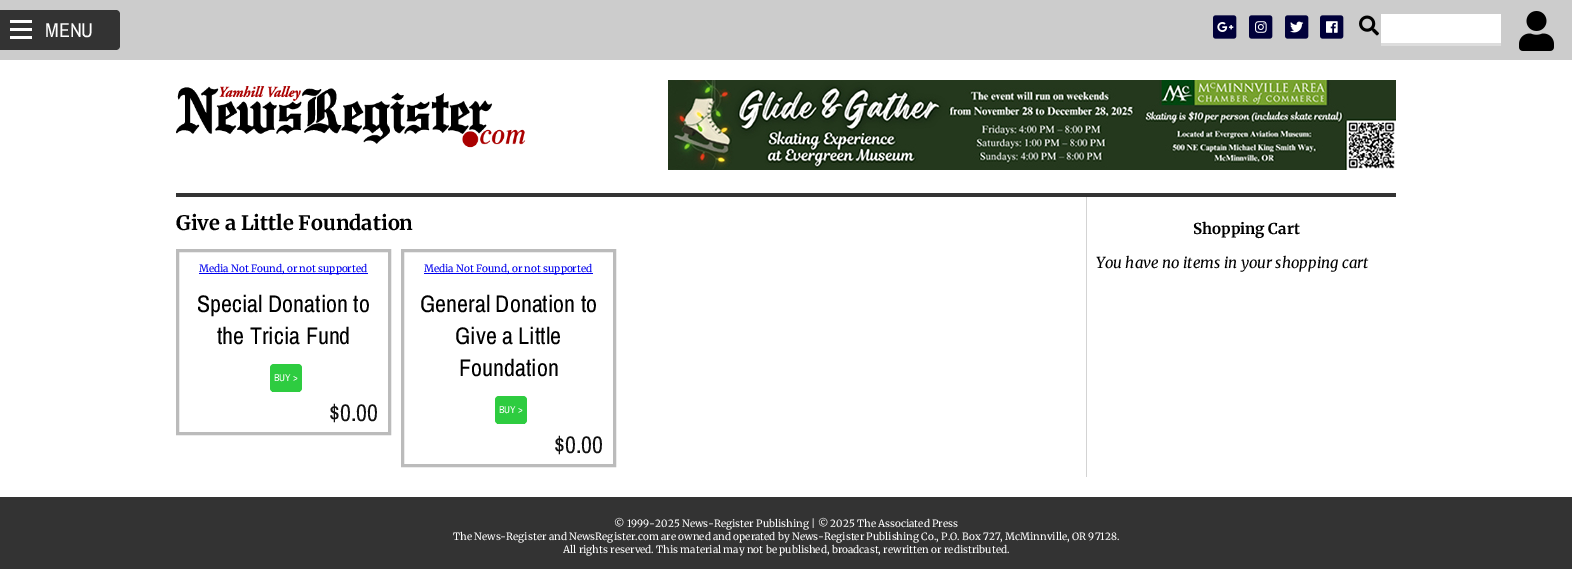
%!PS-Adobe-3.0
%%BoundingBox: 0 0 1572 569
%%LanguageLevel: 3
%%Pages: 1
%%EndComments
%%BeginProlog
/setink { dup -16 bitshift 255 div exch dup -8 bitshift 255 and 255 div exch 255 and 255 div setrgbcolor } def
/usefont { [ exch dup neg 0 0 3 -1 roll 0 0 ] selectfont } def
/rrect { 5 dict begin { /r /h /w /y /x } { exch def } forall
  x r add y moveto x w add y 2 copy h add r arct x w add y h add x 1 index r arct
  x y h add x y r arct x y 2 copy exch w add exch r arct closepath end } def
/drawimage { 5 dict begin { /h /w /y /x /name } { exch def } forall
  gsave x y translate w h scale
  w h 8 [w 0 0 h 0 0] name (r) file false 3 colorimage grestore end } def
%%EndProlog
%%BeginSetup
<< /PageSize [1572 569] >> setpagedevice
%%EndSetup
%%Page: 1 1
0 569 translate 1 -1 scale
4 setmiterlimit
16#FFFFFF setink
0 0 1572 569 rectfill
16#CCCCCC setink
0 0 1572 60 rectfill
(img1.raw) 1213 15 24 24 drawimage
(img2.raw) 1217 22 17 10 drawimage
(img1.raw) 1249 15 24 24 drawimage
(img3.raw) 1255 21 12 12 drawimage
(img1.raw) 1285 15 24 24 drawimage
(img4.raw) 1290 21 14 12 drawimage
(img1.raw) 1320 15 24 24 drawimage
(img5.raw) 1326 21 12 12 drawimage
(img6.raw) 1359 15 20 21 drawimage
16#FFFFFF setink
1381 14 120 29 rectfill
16#DDDDDD setink
1381 43 120 3 rectfill
(img7.raw) 1519 11 35 40 drawimage
16#333333 setink
0 10 moveto 116 10 lineto 118 10 120 12 120 14 curveto 120 46 lineto 120 48 118 50 116 50 curveto 0 50 lineto closepath fill
[
    [10 20 22 3 16#FFFFFF]
    [10 28 22 3 16#FFFFFF]
    [10 36 22 3 16#FFFFFF]
] { aload pop setink rectfill } forall
/ArchivoNarrow-Regular 20 usefont
45 37 moveto (MENU) show
16#333333 setink
176 193 1220 4 rectfill
(img8.raw) 176 86 350 62 drawimage
(img9.raw) 668 80 728 90 drawimage
16#D3D3D3 setink
1086 197 1 280 rectfill
/Merriweather-Bold 20 usefont
16#000000 setink
176 230 moveto (Give a Little Foundation) show
16#BBBBBB setink
3 setlinewidth
177.5 250.5 212 183 rectstroke
16#0000EE setink
199 273 169 1 rectfill
/Merriweather-Regular 10 usefont
199 272 moveto (Media Not Found, or not supported) show
/ArchivoNarrow-Regular 24 usefont
16#000000 setink
197 312 moveto (Special Donation to) show
217 344 moveto (the Tricia Fund) show
16#2ECC40 setink
270 364 32 28 4 rrect fill
272 391 28 1 rectfill
/ArchivoNarrow-Regular 10 usefont
16#FFFFFF setink
274 381 moveto (BUY >) show
/ArchivoNarrow-Regular 24 usefont
16#111111 setink
329 421 moveto ($0.00) show
16#BBBBBB setink
402.5 250.5 212 215 rectstroke
16#0000EE setink
424 273 169 1 rectfill
/Merriweather-Regular 10 usefont
424 272 moveto (Media Not Found, or not supported) show
/ArchivoNarrow-Regular 24 usefont
16#000000 setink
[
    [(General Donation to) 420 312]
    [(Give a Little) 455 344]
    [(Foundation) 459 376]
] { aload pop moveto show } forall
16#2ECC40 setink
495 396 32 28 4 rrect fill
497 423 28 1 rectfill
/ArchivoNarrow-Regular 10 usefont
16#FFFFFF setink
499 413 moveto (BUY >) show
/ArchivoNarrow-Regular 24 usefont
16#111111 setink
554 453 moveto ($0.00) show
/Merriweather-Bold 15 usefont
16#000000 setink
1193 234 moveto (Shopping Cart) show
/Merriweather-LightItalic 15 usefont
1096 268 moveto (You have no items in your shopping cart) show
16#333333 setink
0 497 1572 72 rectfill
/Merriweather-Regular 10 usefont
16#FFFFFF setink
[
    [(© 1999-2025 News-Register Publishing | © 2025 The Associated Press) 614 527]
    [(The News-Register and NewsRegister.com are owned and operated by News-Register Publishing Co., P.O. Box 727, McMinnville, OR 97128.) 453 540]
    [(All rights reserved. This material may not be published, broadcast, rewritten or redistributed.) 563 553]
] { aload pop moveto show } forall
showpage
%%EOF
